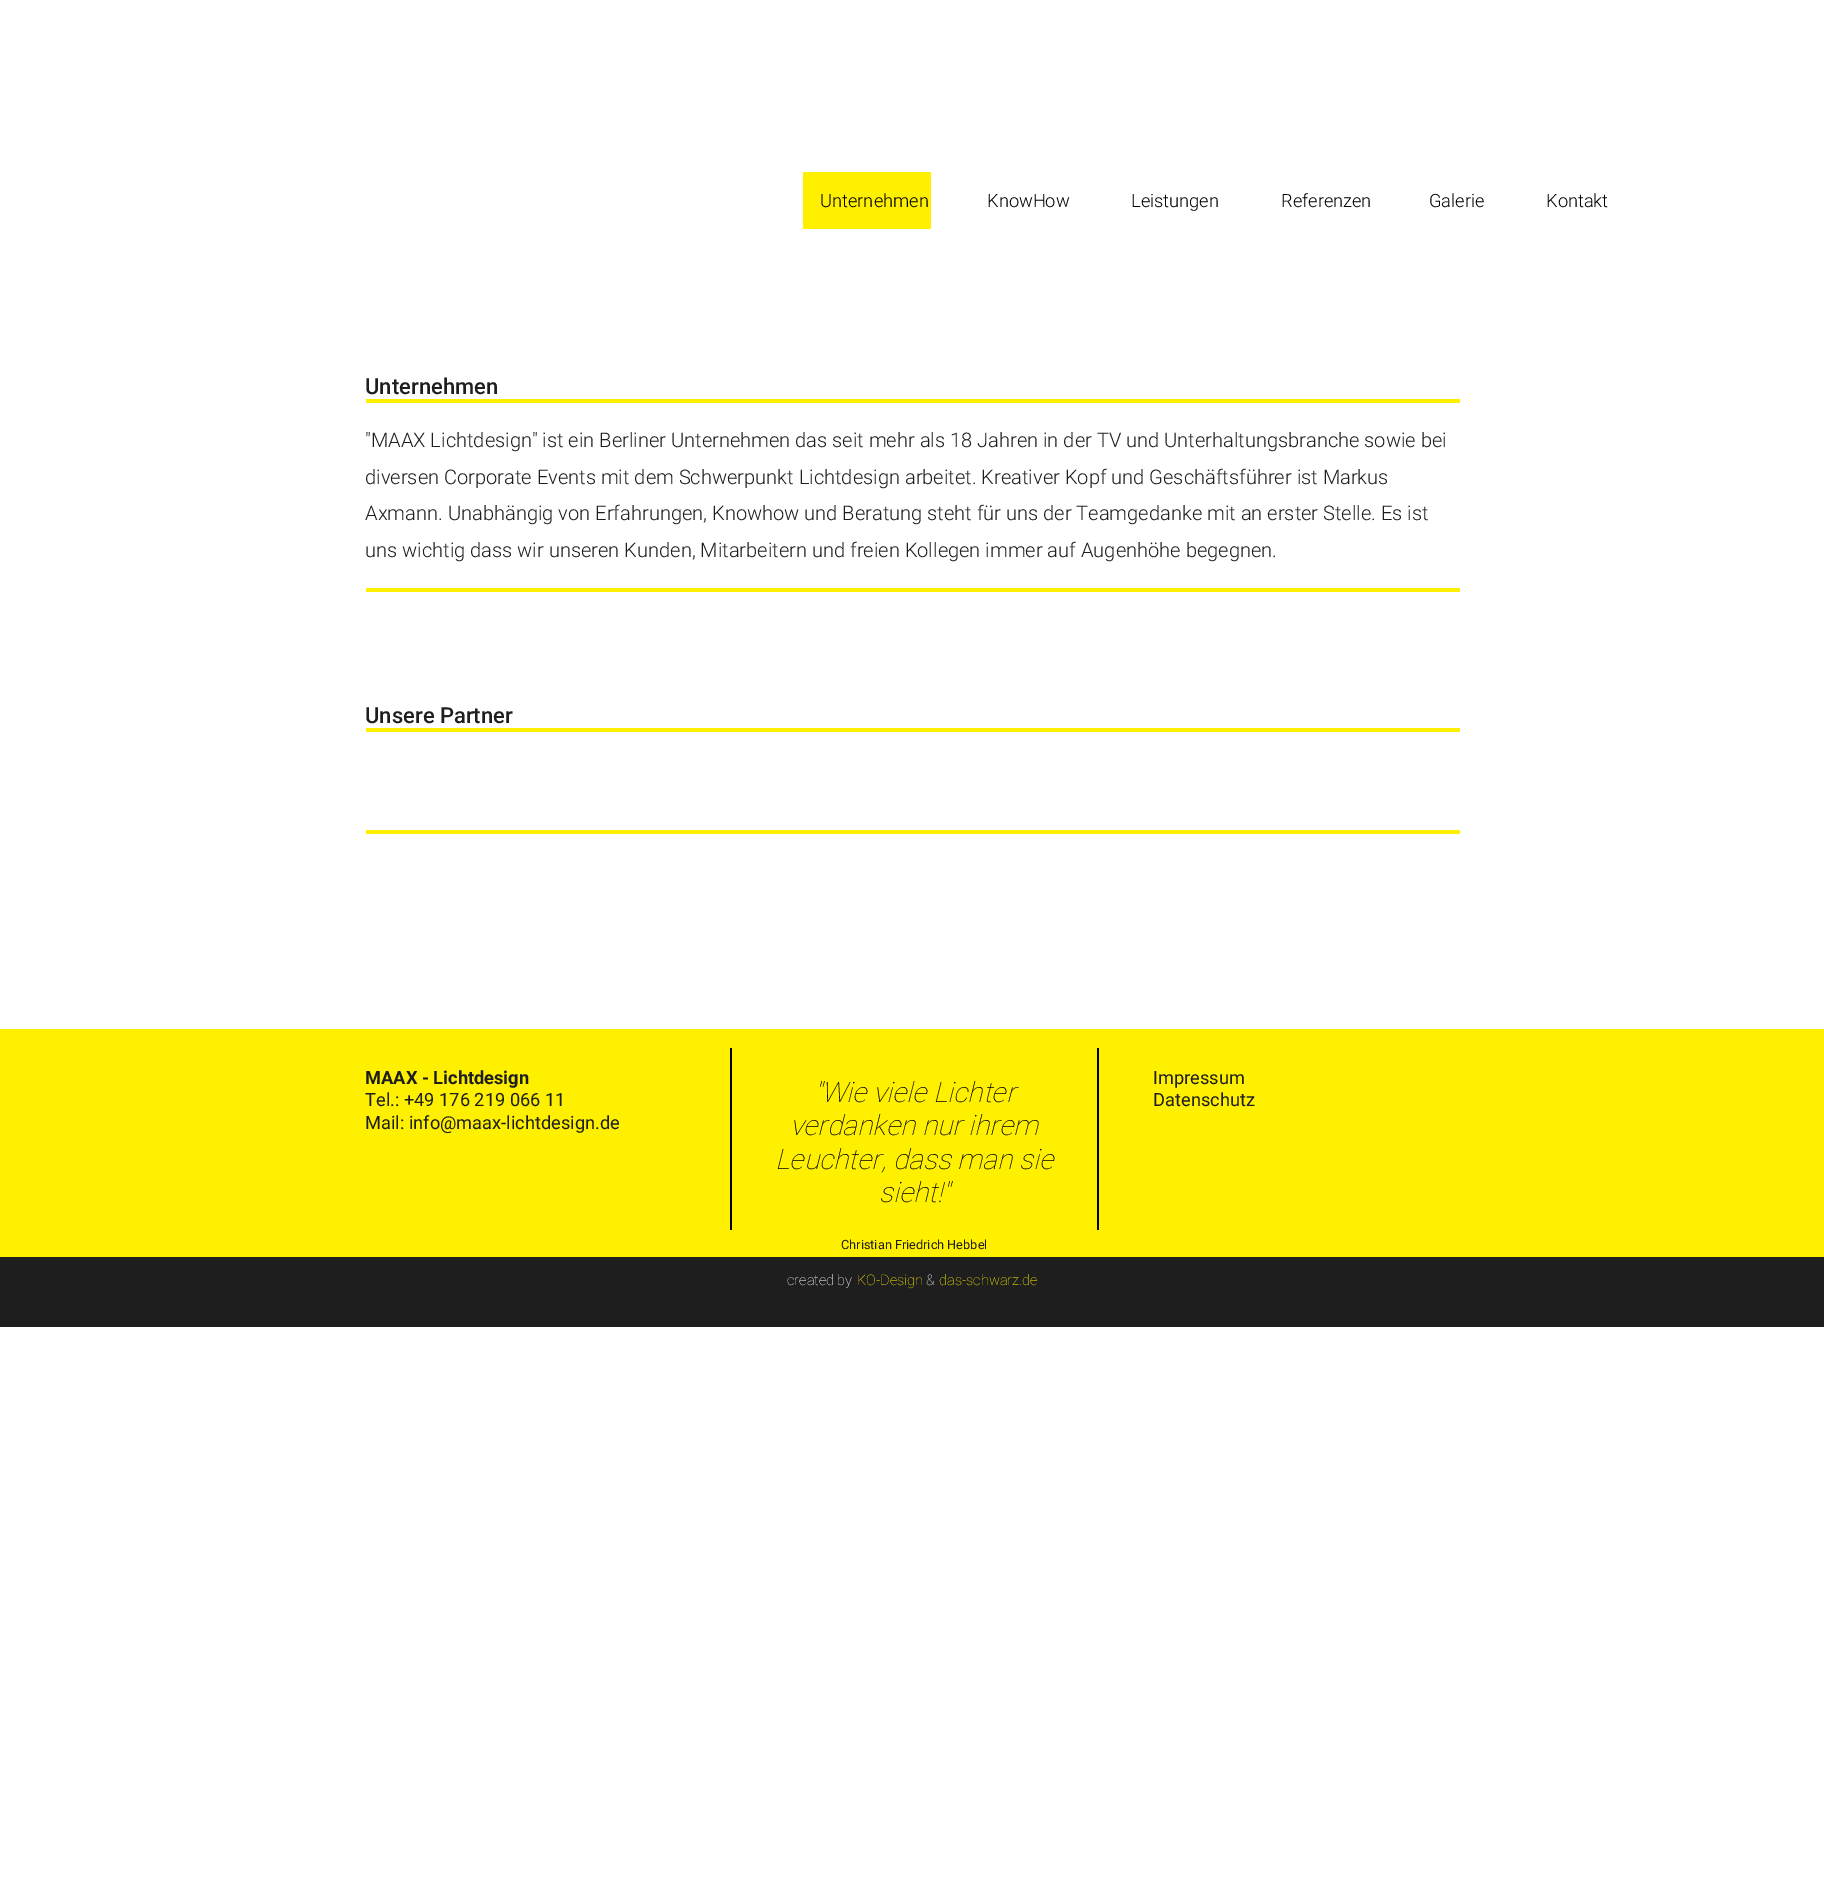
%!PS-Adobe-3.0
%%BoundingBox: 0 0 1824 1877
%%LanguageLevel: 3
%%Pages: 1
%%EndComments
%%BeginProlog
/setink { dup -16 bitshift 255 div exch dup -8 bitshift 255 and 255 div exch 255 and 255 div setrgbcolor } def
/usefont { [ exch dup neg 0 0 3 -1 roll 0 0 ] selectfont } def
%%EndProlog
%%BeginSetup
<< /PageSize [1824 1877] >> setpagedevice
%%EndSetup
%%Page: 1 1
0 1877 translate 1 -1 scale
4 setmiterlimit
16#FFFFFF setink
0 0 1824 1877 rectfill
16#FFF000 setink
803 172 128 57 rectfill
/Roboto-Light 18.25 usefont
16#000000 setink
[
    [(Unternehmen) 820 207]
    [(KnowHow) 987 207]
    [(Leistungen) 1131 207]
    [(Referenzen) 1281 207]
    [(Galerie) 1429 207]
    [(Kontakt) 1546 207]
] { aload pop moveto show } forall
16#FFF000 setink
366 399 1094 4 rectfill
/Roboto-Medium 22 usefont
16#1E1E1E setink
365 394 moveto (Unternehmen) show
16#FFF000 setink
366 588 1094 4 rectfill
/Roboto-Light 20.08 usefont
16#1E1E1E setink
[
    [("MAAX Lichtdesign" ist ein Berliner Unternehmen das seit mehr als 18 Jahren in der TV und Unterhaltungsbranche sowie bei) 365 447]
    [(diversen Corporate Events mit dem Schwerpunkt Lichtdesign arbeitet. Kreativer Kopf und Geschäftsführer ist Markus) 365 484]
    [(Axmann. Unabhängig von Erfahrungen, Knowhow und Beratung steht für uns der Teamgedanke mit an erster Stelle. Es ist) 365 520]
    [(uns wichtig dass wir unseren Kunden, Mitarbeitern und freien Kollegen immer auf Augenhöhe begegnen.) 365 557]
] { aload pop moveto show } forall
16#FFF000 setink
366 728 1094 4 rectfill
/Roboto-Medium 22 usefont
16#1E1E1E setink
365 723 moveto (Unsere Partner) show
[
    [366 830 1094 4 16#FFF000]
    [0 1029 1824 228 16#FFF000]
    [730 1048 2 182 16#000000]
] { aload pop setink rectfill } forall
/Roboto-Bold 18.25 usefont
16#1E1E1E setink
365 1084 moveto (MAAX - Lichtdesign) show
/Roboto-Regular 18.25 usefont
365 1106 moveto (Tel.: +49 176 219 066 11) show
365 1129 moveto (Mail: info@maax-lichtdesign.de) show
/Roboto-ThinItalic 28 usefont
16#000000 setink
[
    [("Wie viele Lichter) 814 1102]
    [(verdanken nur ihrem) 790 1135]
    [(Leuchter, dass man sie) 775 1169]
    [(sieht!") 879 1202]
] { aload pop moveto show } forall
/Roboto-Regular 12.75 usefont
16#1E1E1E setink
841 1249 moveto (Christian Friedrich Hebbel) show
16#000000 setink
1097 1048 2 182 rectfill
/Roboto-Regular 18.25 usefont
16#1E1E1E setink
1153 1084 moveto (Impressum) show
1153 1106 moveto (Datenschutz) show
0 1257 1824 70 rectfill
/Roboto-Thin 14.5 usefont
16#FFFFFF setink
787 1285 moveto (created by) show
16#FFF000 setink
857 1285 moveto (KO-Design) show
16#FFFFFF setink
926 1285 moveto (&) show
16#FFF000 setink
939 1285 moveto (das-schwarz.de) show
showpage
%%EOF
